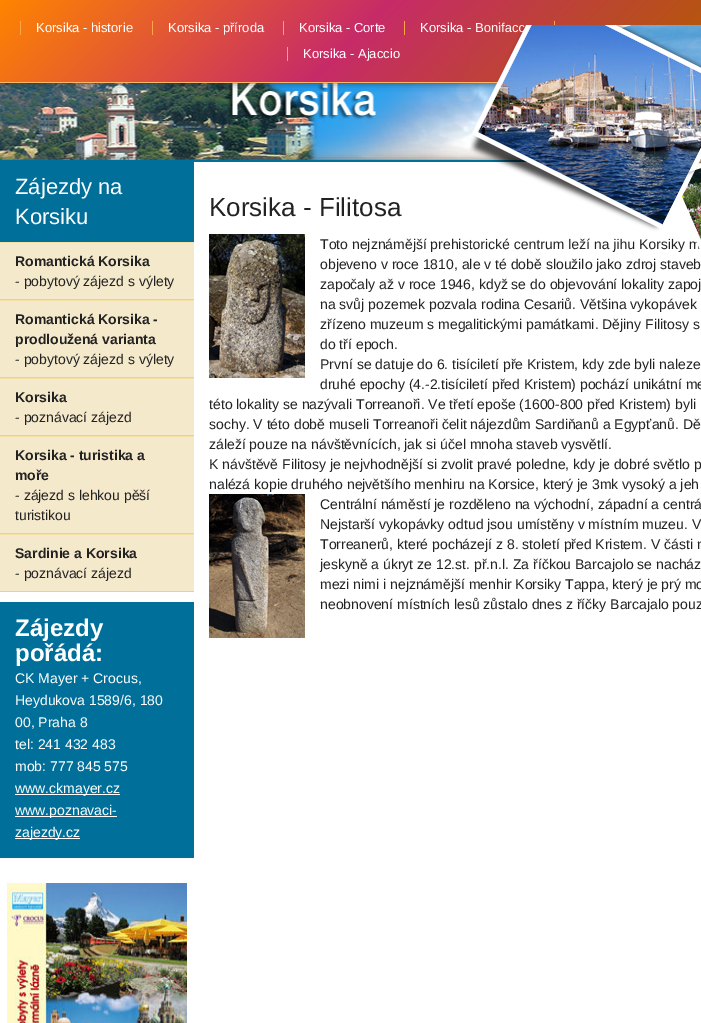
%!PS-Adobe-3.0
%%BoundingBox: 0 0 701 1023
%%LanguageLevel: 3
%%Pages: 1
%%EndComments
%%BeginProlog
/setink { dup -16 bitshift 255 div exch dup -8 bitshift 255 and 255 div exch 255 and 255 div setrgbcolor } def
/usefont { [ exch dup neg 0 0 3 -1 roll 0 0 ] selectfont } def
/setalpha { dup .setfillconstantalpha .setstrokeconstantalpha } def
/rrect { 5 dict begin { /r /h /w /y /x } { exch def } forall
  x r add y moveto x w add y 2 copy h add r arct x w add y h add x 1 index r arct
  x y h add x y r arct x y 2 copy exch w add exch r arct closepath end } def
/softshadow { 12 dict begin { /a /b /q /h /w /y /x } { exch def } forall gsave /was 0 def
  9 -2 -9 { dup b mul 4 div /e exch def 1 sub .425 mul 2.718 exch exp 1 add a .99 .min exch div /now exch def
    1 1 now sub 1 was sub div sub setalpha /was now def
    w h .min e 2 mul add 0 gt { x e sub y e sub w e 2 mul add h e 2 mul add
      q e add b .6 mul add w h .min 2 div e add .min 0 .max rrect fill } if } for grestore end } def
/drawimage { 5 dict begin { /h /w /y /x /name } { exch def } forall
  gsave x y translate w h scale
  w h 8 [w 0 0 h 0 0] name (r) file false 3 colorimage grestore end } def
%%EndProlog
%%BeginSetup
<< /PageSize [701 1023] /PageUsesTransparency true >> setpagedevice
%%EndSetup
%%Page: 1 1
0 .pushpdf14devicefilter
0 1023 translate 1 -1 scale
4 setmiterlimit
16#FFFFFF setink
0 0 701 1023 rectfill
(img1.raw) 0 83 523 77 drawimage
16#222222 setink
0 0 701 83 0 4 0.7 softshadow
gsave 0 0 moveto 701 0 lineto 701 82 lineto 0 82 lineto closepath clip newpath
<< /ShadingType 2 /ColorSpace /DeviceRGB /Coords [155 -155 546 237] /Extend [true true] /Function << /FunctionType 3 /Domain [0 1] /Functions [<< /FunctionType 2 /Domain [0 1] /C0 [1 0.522 0] /C1 [0.78 0.169 0.408] /N 1 >> << /FunctionType 2 /Domain [0 1] /C0 [0.78 0.169 0.408] /C1 [0.702 0.365 0] /N 1 >>] /Bounds [0.5] /Encode [0 1 0 1] >> >> shfill grestore
16#FFB666 setink
0 82 498 1 rectfill
16#FFA747 setink
20 21 1 14 rectfill
/LiberationSans-Regular 13 usefont
16#FFFFFF setink
36 32 moveto (Korsika - historie) show
16#FFA747 setink
152 21 1 14 rectfill
16#FFFFFF setink
168 32 moveto (Korsika - příroda) show
16#FFA747 setink
283 21 1 14 rectfill
16#FFFFFF setink
299 32 moveto (Korsika - Corte) show
16#FFA747 setink
404 21 1 14 rectfill
16#FFFFFF setink
420 32 moveto (Korsika - Bonifacc) show
16#FFA747 setink
554 21 1 4 rectfill
287 47 1 14 rectfill
16#FFFFFF setink
303 58 moveto (Korsika - Ajaccio) show
16#666666 setink
0 160 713 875 0 4 0.9 softshadow
16#FFFFFF setink
0 162 701 861 rectfill
16#006F99 setink
0 160 527 2 rectfill
/LiberationSans-Regular 14 usefont
16#222222 setink
320 249 moveto (Toto nejznámější prehistorické centrum leží na jihu Korsiky m) show
(img2.raw) 470 25 231 224 drawimage
16#006F99 setink
0 162 194 80 rectfill
/LiberationSans-Regular 22 usefont
16#FFFFFF setink
15 194 moveto (Zájezdy na) show
15 224 moveto (Korsiku) show
[
    [0 243 194 56 16#F5E9CC]
    [0 242 194 1 16#F7E0A8]
    [0 299 194 1 16#E3D0A3]
] { aload pop setink rectfill } forall
/LiberationSans-Bold 14 usefont
16#222222 setink
15 266 moveto (Romantická Korsika) show
/LiberationSans-Regular 14 usefont
15 286 moveto (- pobytový zájezd s výlety) show
[
    [0 301 194 76 16#F5E9CC]
    [0 300 194 1 16#F7E0A8]
    [0 377 194 1 16#E3D0A3]
] { aload pop setink rectfill } forall
/LiberationSans-Bold 14 usefont
16#222222 setink
15 324 moveto (Romantická Korsika -) show
15 344 moveto (prodloužená varianta) show
/LiberationSans-Regular 14 usefont
15 364 moveto (- pobytový zájezd s výlety) show
[
    [0 379 194 56 16#F5E9CC]
    [0 378 194 1 16#F7E0A8]
    [0 435 194 1 16#E3D0A3]
] { aload pop setink rectfill } forall
/LiberationSans-Bold 14 usefont
16#222222 setink
15 402 moveto (Korsika) show
/LiberationSans-Regular 14 usefont
15 422 moveto (- poznávací zájezd) show
[
    [0 437 194 96 16#F5E9CC]
    [0 436 194 1 16#F7E0A8]
    [0 533 194 1 16#E3D0A3]
] { aload pop setink rectfill } forall
/LiberationSans-Bold 14 usefont
16#222222 setink
15 460 moveto (Korsika - turistika a) show
15 480 moveto (moře) show
/LiberationSans-Regular 14 usefont
15 500 moveto (- zájezd s lehkou pěší) show
15 520 moveto (turistikou) show
[
    [0 535 194 56 16#F5E9CC]
    [0 534 194 1 16#F7E0A8]
    [0 591 194 1 16#E3D0A3]
] { aload pop setink rectfill } forall
/LiberationSans-Bold 14 usefont
16#222222 setink
15 558 moveto (Sardinie a Korsika) show
/LiberationSans-Regular 14 usefont
15 578 moveto (- poznávací zájezd) show
16#006F99 setink
0 602 194 256 rectfill
/LiberationSans-Bold 24 usefont
16#FFFFFF setink
15 636 moveto (Zájezdy) show
15 661 moveto (pořádá:) show
/LiberationSans-Regular 14 usefont
[
    [(CK Mayer + Crocus,) 15 683]
    [(Heydukova 1589/6, 180) 15 705]
    [(00, Praha 8) 15 727]
    [(tel: 241 432 483) 15 749]
    [(mob: 777 845 575) 15 771]
] { aload pop moveto show } forall
15 794 105 1 rectfill
15 793 moveto (www.ckmayer.cz) show
15 816 102 1 rectfill
15 815 moveto (www.poznavaci-) show
15 838 65 1 rectfill
15 837 moveto (zajezdy.cz) show
(img3.raw) 7 883 180 140 drawimage
/LiberationSans-Regular 26 usefont
16#222222 setink
209 216 moveto (Korsika - Filitosa) show
(img4.raw) 209 234 96 144 drawimage
/LiberationSans-Regular 14 usefont
[
    [(objeveno v roce 1810, ale v té době sloužilo jako zdroj staveb) 320 269]
    [(započaly až v roce 1946, když se do objevování lokality zapoj) 320 289]
    [(na svůj pozemek pozvala rodina Cesariů. Většina vykopávek) 320 309]
    [(zřízeno muzeum s megalitickými památkami. Dějiny Filitosy s) 320 329]
    [(do tří epoch.) 320 349]
    [(První se datuje do 6. tisíciletí pře Kristem, kdy zde byli naleze) 320 369]
    [(druhé epochy \(4.-2.tisíciletí před Kristem\) pochází unikátní me) 320 389]
    [(této lokality se nazývali Torreanoři. Ve třetí epoše \(1600-800 před Kristem\) byli) 209 409]
    [(sochy. V této době museli Torreanoři čelit nájezdům Sardiňanů a Egypťanů. Dě) 209 429]
    [(záleží pouze na návštěvnících, jak si účel mnoha staveb vysvětlí.) 209 449]
    [(K návštěvě Filitosy je nejvhodnější si zvolit pravé poledne, kdy je dobré světlo p) 209 469]
    [(nalézá kopie druhého největšího menhiru na Korsice, který je 3mk vysoký a jeh) 209 489]
] { aload pop moveto show } forall
(img5.raw) 209 494 96 144 drawimage
[
    [(Centrální náměstí je rozděleno na východní, západní a centrá) 320 509]
    [(Nejstarší vykopávky odtud jsou umístěny v místním muzeu. V) 320 529]
    [(Torreanerů, které pocházejí z 8. století před Kristem. V části n) 320 549]
    [(jeskyně a úkryt ze 12.st. př.n.l. Za říčkou Barcajolo se nacház) 320 569]
    [(mezi nimi i nejznámější menhir Korsiky Tappa, který je prý mo) 320 589]
    [(neobnovení místních lesů zůstalo dnes z říčky Barcajalo pouz) 320 609]
] { aload pop moveto show } forall
.poppdf14devicefilter showpage
%%EOF
